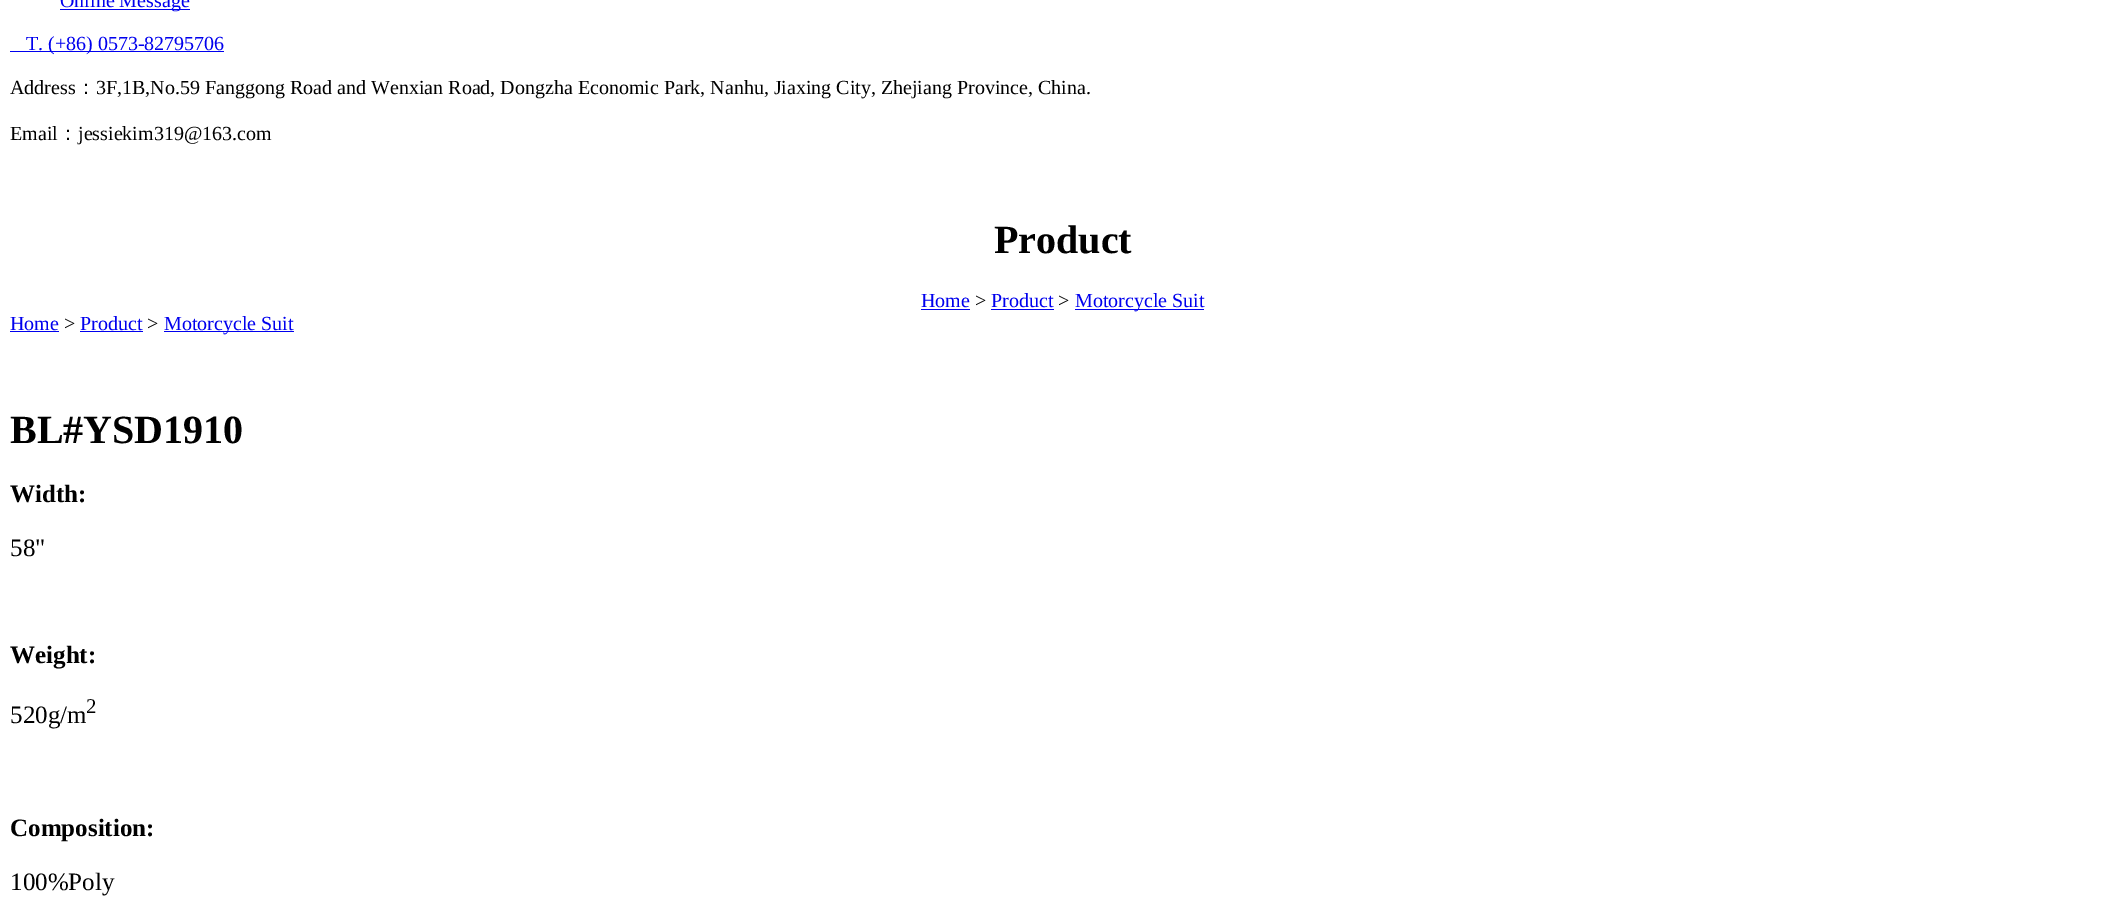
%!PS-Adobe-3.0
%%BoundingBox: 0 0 2124 915
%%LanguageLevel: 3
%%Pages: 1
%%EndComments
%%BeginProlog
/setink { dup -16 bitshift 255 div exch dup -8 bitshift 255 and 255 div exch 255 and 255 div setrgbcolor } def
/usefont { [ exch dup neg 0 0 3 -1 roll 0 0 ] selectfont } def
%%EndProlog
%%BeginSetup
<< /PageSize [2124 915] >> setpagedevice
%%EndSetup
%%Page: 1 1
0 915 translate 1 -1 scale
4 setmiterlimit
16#FFFFFF setink
0 0 2124 915 rectfill
16#0000EE setink
60 9 130 1 rectfill
/LiberationSerif-Regular 20 usefont
60 7 moveto (Online Message) show
10 51 214 1 rectfill
26 50 moveto (T. \(+86\) 0573-82795706) show
16#000000 setink
10 94 moveto (Address) show
/WenQuanYiZenHei-Medium 20 usefont
76 94 moveto (：) show
/LiberationSerif-Regular 20 usefont
96 94 moveto (3F,1B,No.59 Fanggong Road and Wenxian Road, Dongzha Economic Park, Nanhu, Jiaxing City, Zhejiang Province, China.) show
10 140 moveto (Email) show
/WenQuanYiZenHei-Medium 20 usefont
58 140 moveto (：) show
/LiberationSerif-Regular 20 usefont
78 140 moveto (jessiekim319@163.com) show
/LiberationSerif-Bold 40 usefont
994 253 moveto (Product) show
/LiberationSerif-Regular 20 usefont
16#0000EE setink
921 307 moveto (Home) show
921 309 49 1 rectfill
16#000000 setink
975 307 moveto (>) show
16#0000EE setink
991 307 moveto (Product) show
991 309 63 1 rectfill
16#000000 setink
1058 307 moveto (>) show
16#0000EE setink
1075 309 129 1 rectfill
1075 307 moveto (Motorcycle Suit) show
10 330 moveto (Home) show
10 331 49 1 rectfill
16#000000 setink
64 330 moveto (>) show
16#0000EE setink
80 330 moveto (Product) show
80 331 63 1 rectfill
16#000000 setink
147 330 moveto (>) show
16#0000EE setink
164 331 130 1 rectfill
164 330 moveto (Motorcycle Suit) show
/LiberationSerif-Bold 40 usefont
16#000000 setink
10 443 moveto (BL#YSD1910) show
/LiberationSerif-Bold 25 usefont
10 502 moveto (Width:) show
/LiberationSerif-Regular 25 usefont
10 556 moveto (58") show
/LiberationSerif-Bold 25 usefont
10 663 moveto (Weight:) show
/LiberationSerif-Regular 25 usefont
10 723 moveto (520g/m) show
/LiberationSerif-Regular 21 usefont
86 713 moveto (2) show
/LiberationSerif-Bold 25 usefont
10 836 moveto (Composition:) show
/LiberationSerif-Regular 25 usefont
10 890 moveto (100%Poly) show
showpage
%%EOF
